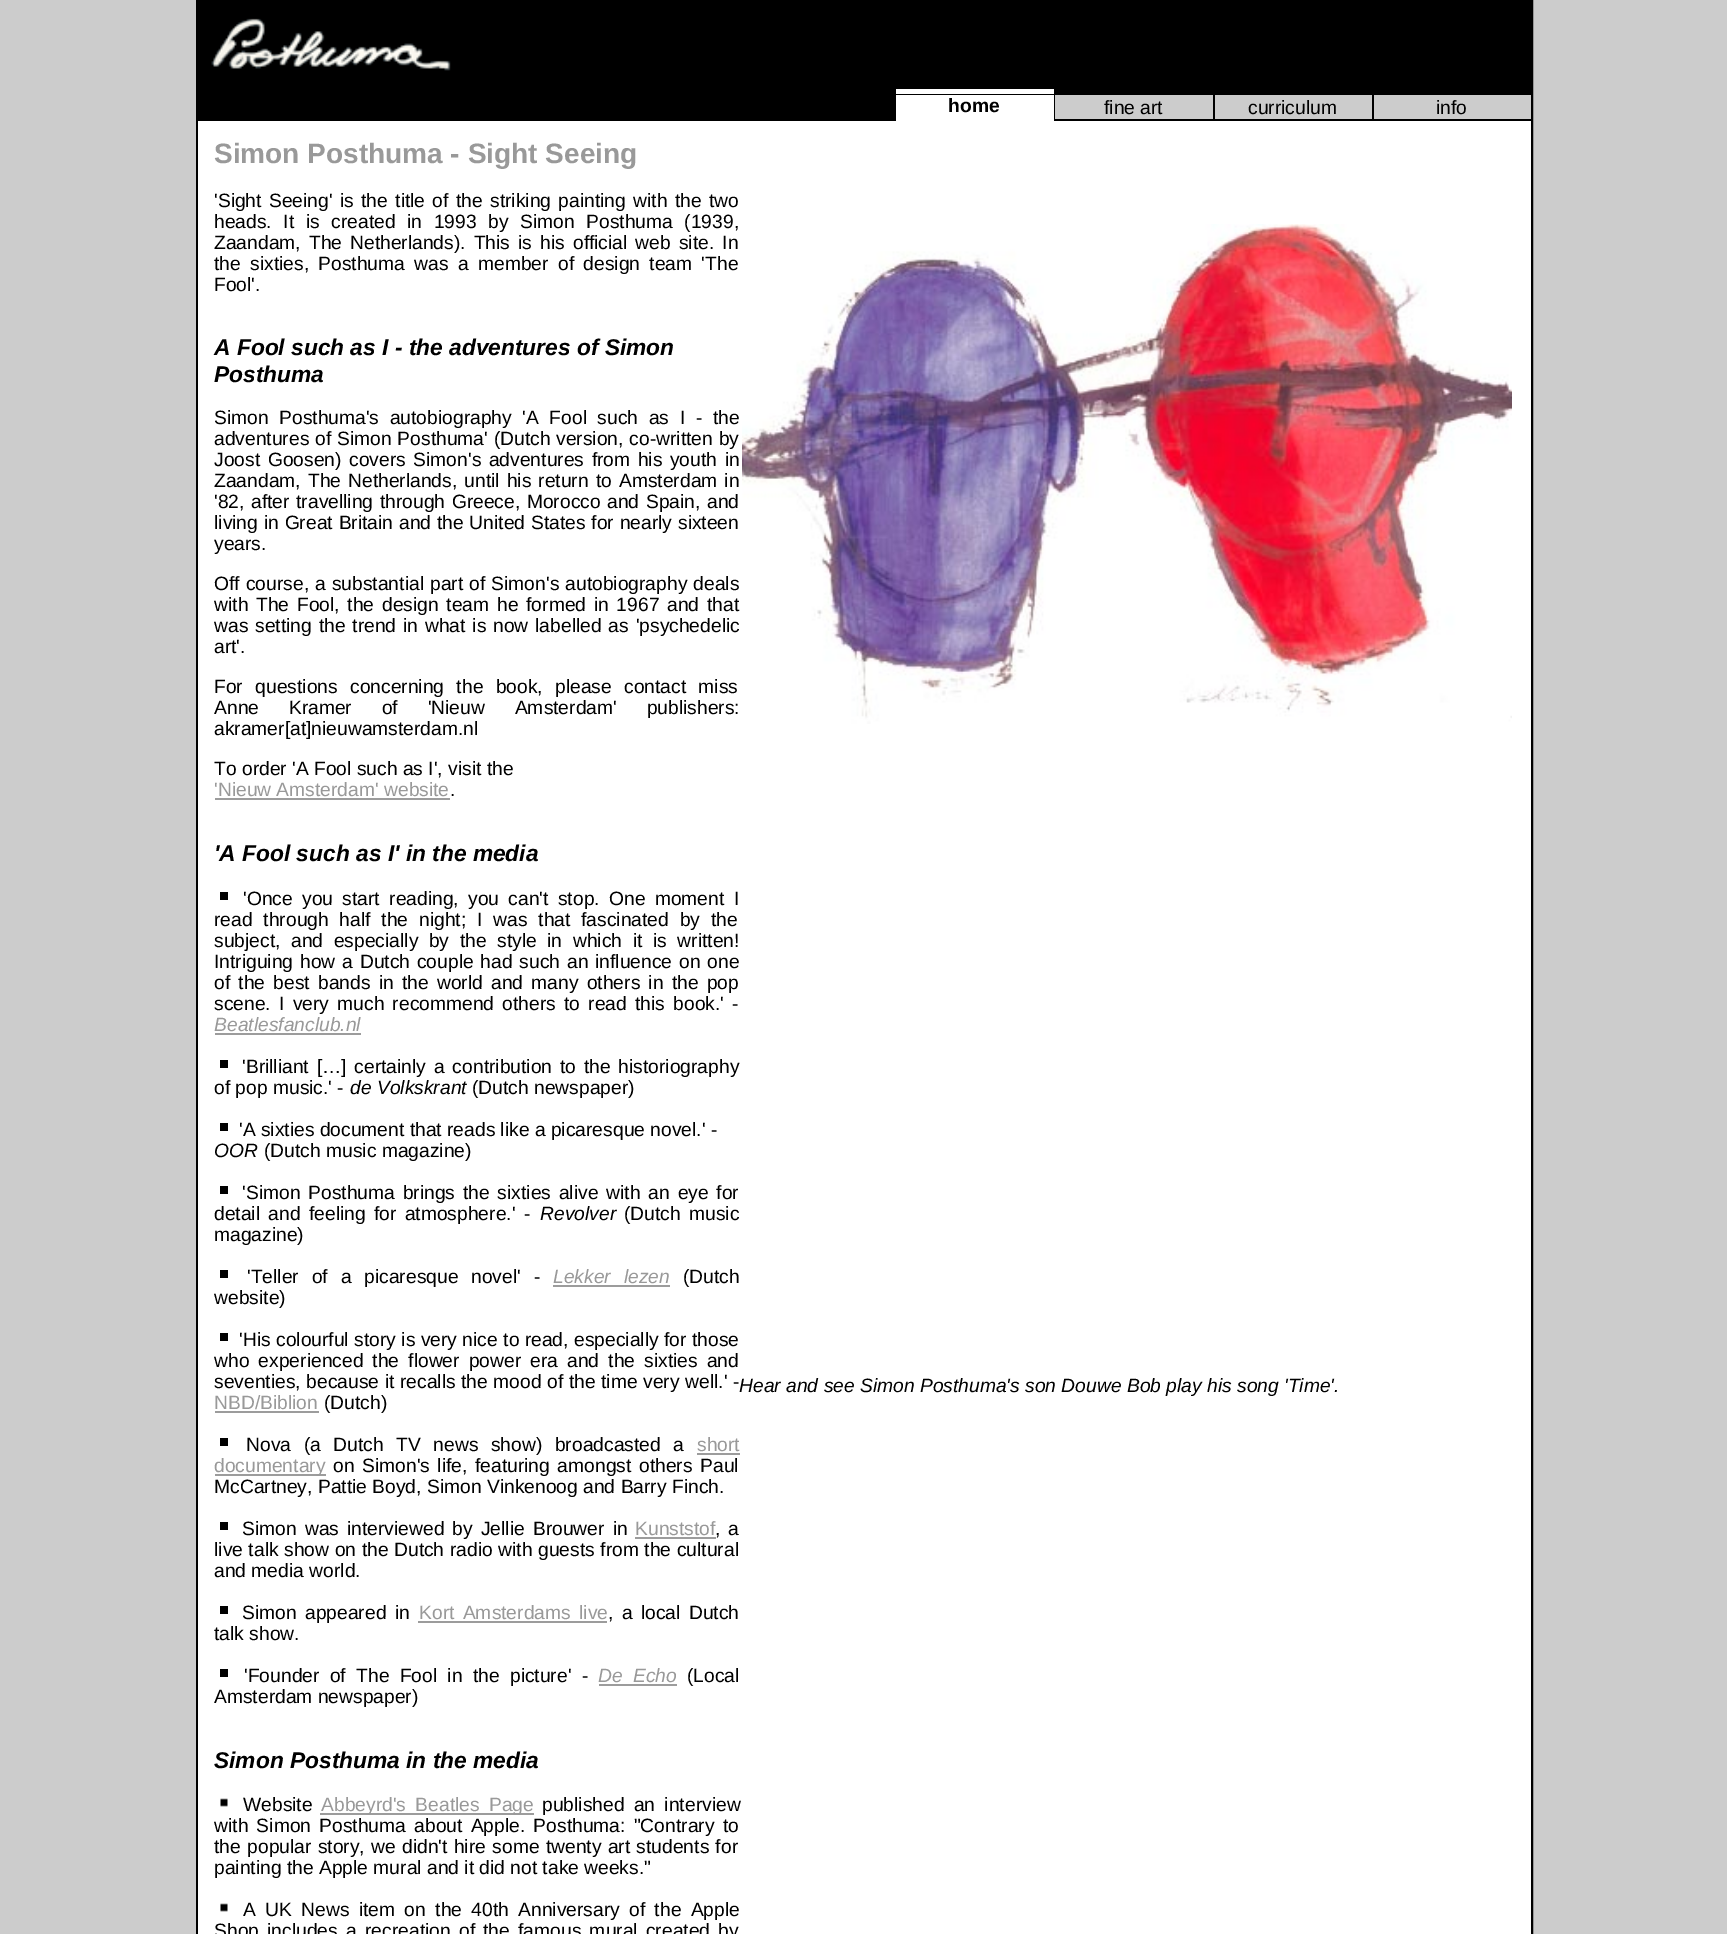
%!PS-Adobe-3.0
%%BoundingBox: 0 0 1727 1934
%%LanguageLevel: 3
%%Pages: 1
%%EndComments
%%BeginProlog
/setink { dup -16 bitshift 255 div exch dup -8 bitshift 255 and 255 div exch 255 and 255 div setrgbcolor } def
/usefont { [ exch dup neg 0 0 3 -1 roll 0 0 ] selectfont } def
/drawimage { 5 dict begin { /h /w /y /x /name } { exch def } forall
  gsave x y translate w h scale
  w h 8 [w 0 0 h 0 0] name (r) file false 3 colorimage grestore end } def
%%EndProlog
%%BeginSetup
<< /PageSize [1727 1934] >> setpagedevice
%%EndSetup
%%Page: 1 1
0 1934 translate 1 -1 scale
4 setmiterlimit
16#CCCCCC setink
0 0 1727 1934 rectfill
16#000000 setink
2 setlinewidth
197 1 1335 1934 rectstroke
198 2 1333 119 rectfill
(img1.raw) 211 18 240 53 drawimage
16#FFFFFF setink
896 89 158 5 rectfill
896 95 158 26 rectfill
/LiberationSans-Bold 19.25 usefont
16#000000 setink
948 112 moveto (home) show
16#CCCCCC setink
1055 95 158 24 rectfill
/LiberationSans-Regular 19.25 usefont
16#000000 setink
1104 114 moveto (fine art) show
16#CCCCCC setink
1215 95 157 24 rectfill
16#000000 setink
1248 114 moveto (curriculum) show
16#CCCCCC setink
1374 95 157 24 rectfill
16#000000 setink
1436 114 moveto (info) show
16#FFFFFF setink
198 121 1333 1813 rectfill
/LiberationSans-Bold 28 usefont
16#999999 setink
214 163 moveto (Simon Posthuma - Sight Seeing) show
/LiberationSans-Regular 19.25 usefont
16#000000 setink
214 207 moveto 2 0 32 ('Sight Seeing' is the title of the striking painting with the two) widthshow
214 228 moveto 6.25 0 32 (heads. It is created in 1993 by Simon Posthuma \(1939,) widthshow
214 249 moveto 2.75 0 32 (Zaandam, The Netherlands\). This is his official web site. In) widthshow
214 270 moveto 4 0 32 (the sixties, Posthuma was a member of design team 'The) widthshow
214 291 moveto (Fool'.) show
/LiberationSans-BoldItalic 22.75 usefont
214 355 moveto (A Fool such as I - the adventures of Simon) show
214 382 moveto (Posthuma) show
/LiberationSans-Regular 19.25 usefont
214 424 moveto 5.25 0 32 (Simon Posthuma's autobiography 'A Fool such as I - the) widthshow
214 445 moveto 0.5 0 32 (adventures of Simon Posthuma' \(Dutch version, co-written by) widthshow
214 466 moveto 2.25 0 32 (Joost Goosen\) covers Simon's adventures from his youth in) widthshow
214 487 moveto 1.75 0 32 (Zaandam, The Netherlands, until his return to Amsterdam in) widthshow
214 508 moveto 1.25 0 32 ('82, after travelling through Greece, Morocco and Spain, and) widthshow
214 529 moveto 0.5 0 32 (living in Great Britain and the United States for nearly sixteen) widthshow
214 550 moveto (years.) show
214 590 moveto 0.75 0 32 (Off course, a substantial part of Simon's autobiography deals) widthshow
214 611 moveto 2.4 0 32 (with The Fool, the design team he formed in 1967 and that) widthshow
214 632 moveto 1.5 0 32 (was setting the trend in what is now labelled as 'psychedelic) widthshow
214 653 moveto (art'.) show
214 693 moveto 7 0 32 (For questions concerning the book, please contact miss) widthshow
214 714 moveto 24.5 0 32 (Anne Kramer of 'Nieuw Amsterdam' publishers:) widthshow
214 735 moveto (akramer[at]nieuwamsterdam.nl) show
214 775 moveto (To order 'A Fool such as I', visit the) show
16#999999 setink
214 796 moveto ('Nieuw Amsterdam' website) show
16#9C9C9C setink
215 798 235 2 rectfill
16#000000 setink
450 796 moveto (.) show
/LiberationSans-BoldItalic 22.75 usefont
214 861 moveto ('A Fool such as I' in the media) show
220 892 8 8 rectfill
/LiberationSans-Regular 19.25 usefont
243 905 moveto 4 0 32 ('Once you start reading, you can't stop. One moment I) widthshow
214 926 moveto 5.5 0 32 (read through half the night; I was that fascinated by the) widthshow
214 947 moveto 5.25 0 32 (subject, and especially by the style in which it is written!) widthshow
214 968 moveto 1.5 0 32 (Intriguing how a Dutch couple had such an influence on one) widthshow
214 989 moveto 2.9 0 32 (of the best bands in the world and many others in the pop) widthshow
214 1010 moveto 2.9 0 32 (scene. I very much recommend others to read this book.' -) widthshow
/LiberationSans-Italic 19.25 usefont
16#999999 setink
214 1031 moveto (Beatlesfanclub.nl) show
16#9C9C9C setink
215 1033 146 2 rectfill
16#000000 setink
220 1060 8 8 rectfill
/LiberationSans-Regular 19.25 usefont
242 1073 moveto 2.5 0 32 ('Brilliant […] certainly a contribution to the historiography) widthshow
214 1094 moveto (of pop music.' -) show
/LiberationSans-Italic 19.25 usefont
350 1094 moveto (de Volkskrant) show
/LiberationSans-Regular 19.25 usefont
472 1094 moveto (\(Dutch newspaper\)) show
220 1123 8 8 rectfill
239 1136 moveto ('A sixties document that reads like a picaresque novel.' -) show
/LiberationSans-Italic 19.25 usefont
214 1157 moveto (OOR) show
/LiberationSans-Regular 19.25 usefont
264 1157 moveto (\(Dutch music magazine\)) show
220 1186 8 8 rectfill
242 1199 moveto 2.5 0 32 ('Simon Posthuma brings the sixties alive with an eye for) widthshow
214 1220 moveto 3 0 32 (detail and feeling for atmosphere.' -) widthshow
/LiberationSans-Italic 19.25 usefont
540 1220 moveto (Revolver) show
/LiberationSans-Regular 19.25 usefont
624 1220 moveto 3 0 32 (\(Dutch music) widthshow
214 1241 moveto (magazine\)) show
220 1270 8 8 rectfill
247 1283 moveto 7.5 0 32 ('Teller of a picaresque novel' -) widthshow
/LiberationSans-Italic 19.25 usefont
16#999999 setink
553 1283 moveto 7.5 0 32 (Lekker lezen) widthshow
16#9C9C9C setink
553 1285 117 2 rectfill
/LiberationSans-Regular 19.25 usefont
16#000000 setink
683 1283 moveto (\(Dutch) show
214 1304 moveto (website\)) show
220 1333 8 8 rectfill
239 1346 moveto 0.1 0 32 ('His colourful story is very nice to read, especially for those) widthshow
214 1367 moveto 3.75 0 32 (who experienced the flower power era and the sixties and) widthshow
214 1388 moveto 0.25 0 32 (seventies, because it recalls the mood of the time very well.' -) widthshow
16#999999 setink
214 1409 moveto (NBD/Biblion) show
16#9C9C9C setink
215 1411 104 2 rectfill
16#000000 setink
324 1409 moveto (\(Dutch\)) show
220 1438 8 8 rectfill
246 1451 moveto 7.25 0 32 (Nova \(a Dutch TV news show\) broadcasted a) widthshow
16#999999 setink
697 1451 moveto (short) show
16#9C9C9C setink
697 1453 43 2 rectfill
215 1474 111 2 rectfill
16#999999 setink
214 1472 moveto (documentary) show
16#000000 setink
333 1472 moveto 2.25 0 32 (on Simon's life, featuring amongst others Paul) widthshow
214 1493 moveto (McCartney, Pattie Boyd, Simon Vinkenoog and Barry Finch.) show
220 1522 8 8 rectfill
242 1535 moveto 2.75 0 32 (Simon was interviewed by Jellie Brouwer in) widthshow
16#999999 setink
635 1535 moveto (Kunststof) show
16#9C9C9C setink
635 1537 81 2 rectfill
16#000000 setink
715 1535 moveto 2.75 0 32 (, a) widthshow
214 1556 moveto 0.25 0 32 (live talk show on the Dutch radio with guests from the cultural) widthshow
214 1577 moveto (and media world.) show
220 1606 8 8 rectfill
242 1619 moveto 3 0 32 (Simon appeared in) widthshow
16#999999 setink
419 1619 moveto 3 0 32 (Kort Amsterdams live) widthshow
16#9C9C9C setink
418 1621 189 2 rectfill
16#000000 setink
608 1619 moveto 3 0 32 (, a local Dutch) widthshow
214 1640 moveto (talk show.) show
220 1669 8 8 rectfill
244 1682 moveto 5 0 32 ('Founder of The Fool in the picture' -) widthshow
/LiberationSans-Italic 19.25 usefont
16#999999 setink
598 1682 moveto 5 0 32 (De Echo) widthshow
16#9C9C9C setink
599 1684 78 2 rectfill
/LiberationSans-Regular 19.25 usefont
16#000000 setink
687 1682 moveto (\(Local) show
214 1703 moveto (Amsterdam newspaper\)) show
/LiberationSans-BoldItalic 22.75 usefont
214 1768 moveto (Simon Posthuma in the media) show
(img2.raw) 220 1798 8 9 drawimage
/LiberationSans-Regular 19.25 usefont
243 1811 moveto (Website) show
16#9C9C9C setink
320 1813 214 2 rectfill
16#999999 setink
321 1811 moveto 4 0 32 (Abbeyrd's Beatles Page) widthshow
16#000000 setink
542 1811 moveto 4 0 32 (published an interview) widthshow
214 1832 moveto 2.9 0 32 (with Simon Posthuma about Apple. Posthuma: "Contrary to) widthshow
214 1853 moveto 1 0 32 (the popular story, we didn't hire some twenty art students for) widthshow
214 1874 moveto (painting the Apple mural and it did not take weeks.") show
(img2.raw) 220 1903 8 9 drawimage
243 1916 moveto 4 0 32 (A UK News item on the 40th Anniversary of the Apple) widthshow
214 1937 moveto 2.9 0 32 (Shop includes a recreation of the famous mural created by) widthshow
(img3.raw) 742 224 770 500 drawimage
/LiberationSans-Italic 19.25 usefont
739 1392 moveto (Hear and see Simon Posthuma's son Douwe Bob play his song 'Time'.) show
showpage
%%EOF
